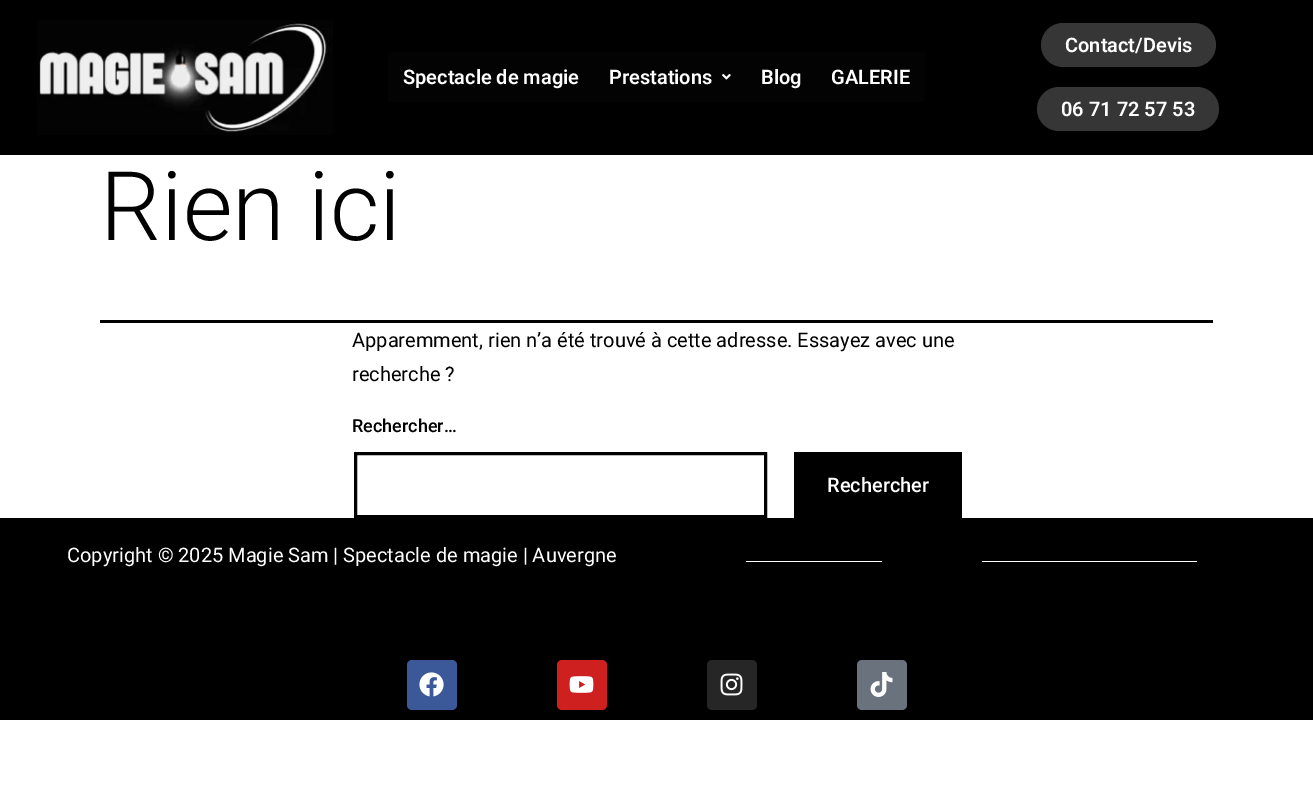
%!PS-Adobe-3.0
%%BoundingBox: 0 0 1313 791
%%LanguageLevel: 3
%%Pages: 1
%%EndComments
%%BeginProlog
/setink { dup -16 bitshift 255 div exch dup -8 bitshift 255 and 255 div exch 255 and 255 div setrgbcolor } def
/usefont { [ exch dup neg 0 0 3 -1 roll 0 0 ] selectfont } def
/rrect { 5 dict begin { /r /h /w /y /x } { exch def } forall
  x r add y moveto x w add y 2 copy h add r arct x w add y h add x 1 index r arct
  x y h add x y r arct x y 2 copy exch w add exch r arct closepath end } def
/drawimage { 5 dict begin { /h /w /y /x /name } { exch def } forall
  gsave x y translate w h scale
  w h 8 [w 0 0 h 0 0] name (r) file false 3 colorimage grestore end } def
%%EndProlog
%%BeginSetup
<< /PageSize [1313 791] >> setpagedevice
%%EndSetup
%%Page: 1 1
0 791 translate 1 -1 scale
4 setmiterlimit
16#FFFFFF setink
0 0 1313 791 rectfill
16#000000 setink
0 0 1313 155 rectfill
(img1.raw) 37 20 296 115 drawimage
16#030303 setink
388 52 537 50 rectfill
/Roboto-SemiBold 20 usefont
16#FFFFFF setink
403 84 moveto (Spectacle de magie) show
609 84 moveto (Prestations) show
(img2.raw) 722 74 9 6 drawimage
761 84 moveto (Blog) show
831 84 moveto (GALERIE) show
16#363636 setink
1041 23 175 44 22 rrect fill
16#FFFFFF setink
1065 52 moveto (Contact/Devis) show
16#363636 setink
1037 87 182 44 22 rrect fill
16#FFFFFF setink
1061 116 moveto (06 71 72 57 53) show
16#000000 setink
100 320 1113 3 rectfill
/Roboto-Light 96 usefont
100 240 moveto (Rien ici) show
/Roboto-Regular 20 usefont
352 347 moveto (Apparemment, rien n’a été trouvé à cette adresse. Essayez avec une) show
352 381 moveto (recherche ?) show
/Roboto-Medium 18 usefont
352 432 moveto (Rechercher…) show
3 setlinewidth
355.5 453.5 410 63 rectstroke
794 452 168 66 rectfill
/Roboto-Medium 20 usefont
16#FFFFFF setink
827 492 moveto (Rechercher) show
16#000000 setink
0 518 1313 202 rectfill
/Roboto-Regular 20 usefont
16#FFFFFF setink
67 562 moveto (Copyright © 2025 Magie Sam | Spectacle de magie | Auvergne) show
746 561 136 1 rectfill
982 561 215 1 rectfill
16#3B5998 setink
407 660 50 50 5 rrect fill
(img3.raw) 419 672 25 25 drawimage
16#CD201F setink
557 660 50 50 5 rrect fill
(img4.raw) 569 676 25 17 drawimage
16#262626 setink
707 660 50 50 5 rrect fill
(img5.raw) 720 673 23 23 drawimage
16#69727D setink
857 660 50 50 5 rrect fill
(img6.raw) 870 672 23 25 drawimage
showpage
%%EOF
